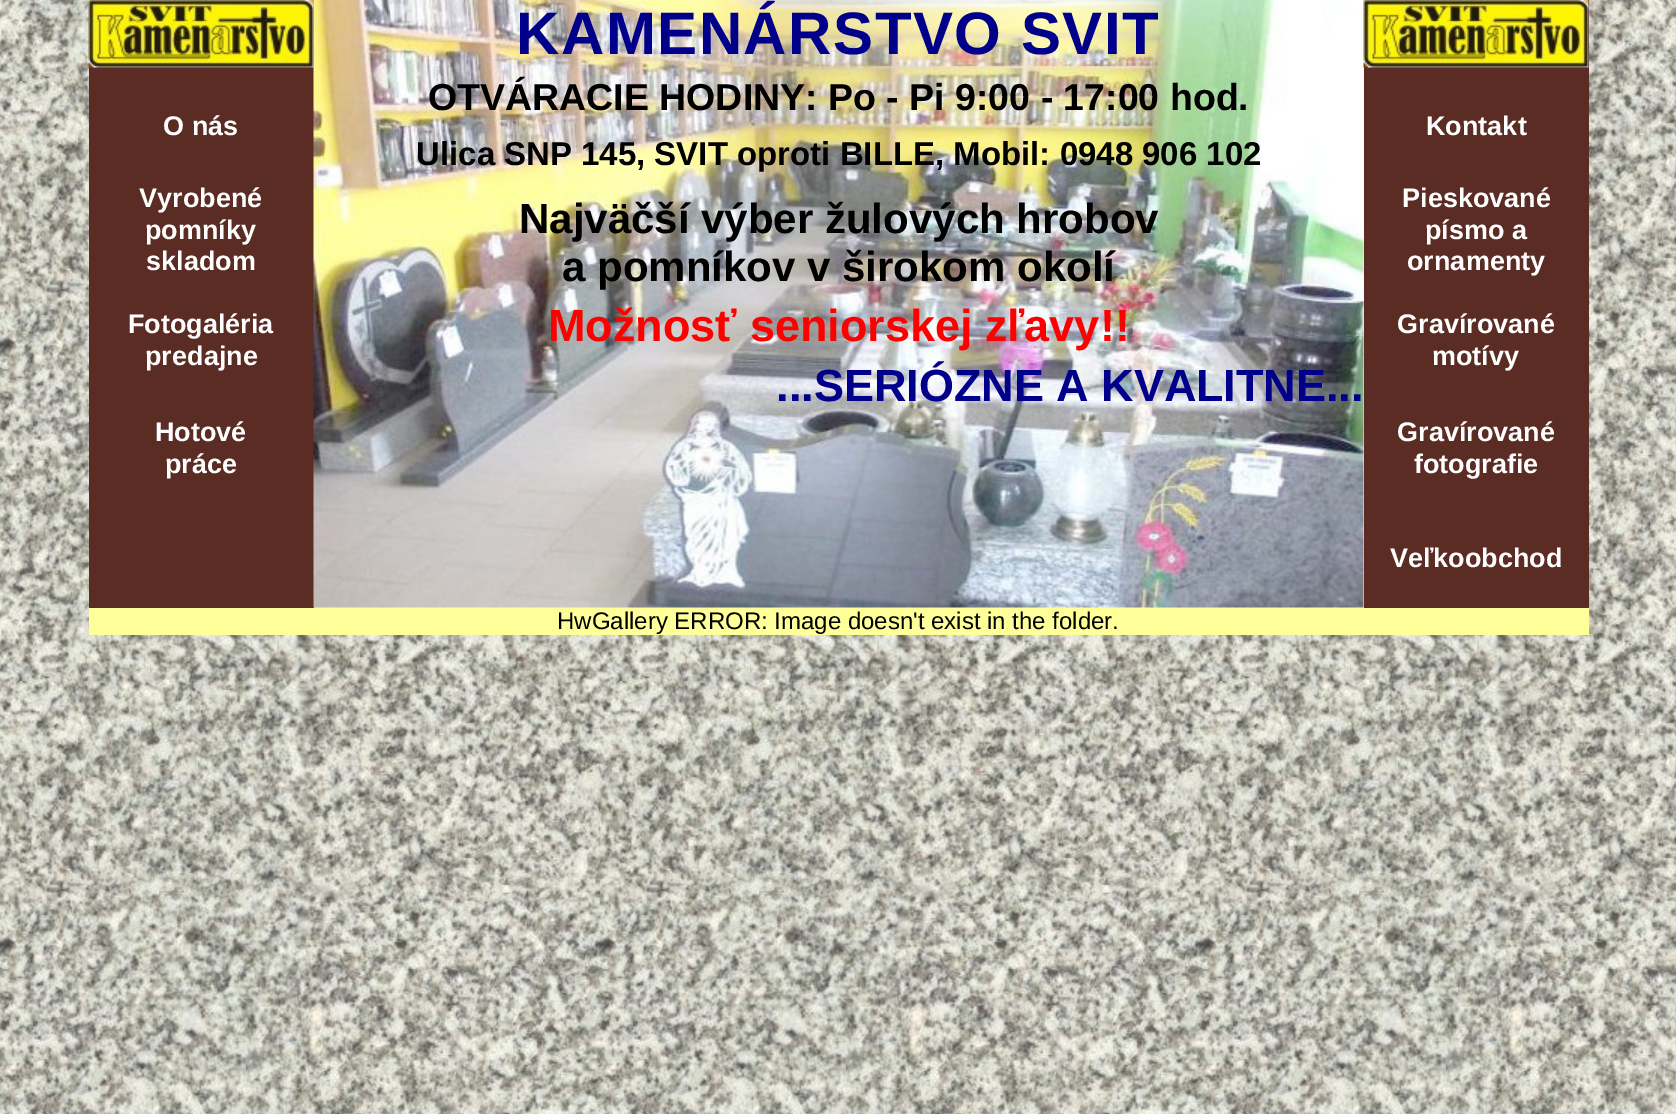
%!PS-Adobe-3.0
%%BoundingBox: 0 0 1676 1114
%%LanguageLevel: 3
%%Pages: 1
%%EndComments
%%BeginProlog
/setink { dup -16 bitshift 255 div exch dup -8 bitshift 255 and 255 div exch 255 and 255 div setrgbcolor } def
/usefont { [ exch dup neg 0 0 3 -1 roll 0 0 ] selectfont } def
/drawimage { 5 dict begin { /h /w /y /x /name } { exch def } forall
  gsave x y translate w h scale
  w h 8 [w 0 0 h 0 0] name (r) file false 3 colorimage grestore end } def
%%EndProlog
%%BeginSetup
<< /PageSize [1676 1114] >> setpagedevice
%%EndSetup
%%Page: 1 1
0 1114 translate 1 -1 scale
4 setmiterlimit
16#FFFFFF setink
0 0 1676 1114 rectfill
(img1.raw) 0 0 1676 1114 drawimage
16#FFFF99 setink
89 0 1500 635 rectfill
16#5A2C24 setink
89 0 225 608 rectfill
(img2.raw) 88 0 226 68 drawimage
/LiberationSans-Bold 27 usefont
16#FFFFFF setink
[
    [(O nás) 163 135]
    [(Vyrobené) 139 207]
    [(pomníky) 145 239]
    [(skladom) 146 270]
    [(Fotogaléria) 128 333]
    [(predajne) 145 365]
    [(Hotové) 155 441]
    [(práce) 165 473]
] { aload pop moveto show } forall
(img3.raw) 313 0 1051 608 drawimage
/LiberationSans-Bold 60 usefont
16#00008B setink
516 54 moveto 1.5 0 (KAMENÁRSTVO SVIT) ashow
/LiberationSans-Bold 37.5 usefont
16#000000 setink
428 110 moveto (OTVÁRACIE HODINY: Po - Pi 9:00 - 17:00 hod.) show
/LiberationSans-Bold 33 usefont
416 165 moveto (Ulica SNP 145, SVIT oproti BILLE, Mobil: 0948 906 102) show
/LiberationSans-Bold 42 usefont
519 233 moveto (Najväčší výber žulových hrobov) show
562 281 moveto (a pomníkov v širokom okolí) show
/LiberationSans-Bold 45 usefont
16#FF0000 setink
548 341 moveto (Možnosť seniorskej zľavy!!) show
16#00008B setink
776 401 moveto (...SERIÓZNE A KVALITNE...) show
16#5A2C24 setink
1364 0 225 608 rectfill
(img4.raw) 1363 0 226 68 drawimage
/LiberationSans-Bold 27 usefont
16#FFFFFF setink
[
    [(Kontakt) 1426 135]
    [(Pieskované) 1402 207]
    [(písmo a) 1425 239]
    [(ornamenty) 1407 270]
    [(Gravírované) 1397 333]
    [(motívy) 1432 365]
    [(Gravírované) 1397 441]
    [(fotografie) 1414 473]
    [(Veľkoobchod) 1390 567]
] { aload pop moveto show } forall
/LiberationSans-Regular 24 usefont
16#000000 setink
557 629 moveto (HwGallery ERROR: Image doesn't exist in the folder.) show
showpage
%%EOF
